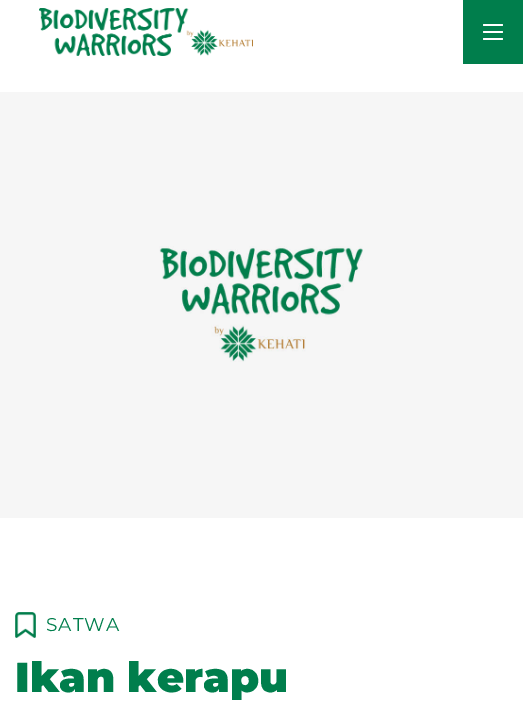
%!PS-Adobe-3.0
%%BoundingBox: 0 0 523 710
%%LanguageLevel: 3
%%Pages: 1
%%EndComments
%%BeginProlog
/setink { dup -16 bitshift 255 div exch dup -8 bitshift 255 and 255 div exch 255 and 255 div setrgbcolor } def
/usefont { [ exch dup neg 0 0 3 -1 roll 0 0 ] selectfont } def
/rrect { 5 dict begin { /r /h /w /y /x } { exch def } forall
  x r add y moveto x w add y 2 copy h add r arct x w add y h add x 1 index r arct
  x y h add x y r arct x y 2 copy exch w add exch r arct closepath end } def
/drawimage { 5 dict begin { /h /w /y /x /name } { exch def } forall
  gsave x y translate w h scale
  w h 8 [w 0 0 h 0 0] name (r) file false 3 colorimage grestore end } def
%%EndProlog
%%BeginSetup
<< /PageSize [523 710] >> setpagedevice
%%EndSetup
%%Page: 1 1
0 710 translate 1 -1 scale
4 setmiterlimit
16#FFFFFF setink
0 0 523 710 rectfill
(img1.raw) 39 8 214 48 drawimage
16#007E4C setink
463 0 60 64 rectfill
16#FFFFFF setink
483 24 20 2 1 rrect fill
483 31 20 2 1 rrect fill
483 38 20 2 1 rrect fill
16#F6F6F6 setink
0 92 523 426 rectfill
(img2.raw) 159 246 204 116 drawimage
(img3.raw) 15 612 21 26 drawimage
/Montserrat-Regular 18.5 usefont
16#007E4C setink
46 631 moveto 1 0 (SATWA) ashow
/Montserrat-Black 41.75 usefont
15 692 moveto (Ikan kerapu) show
showpage
%%EOF
